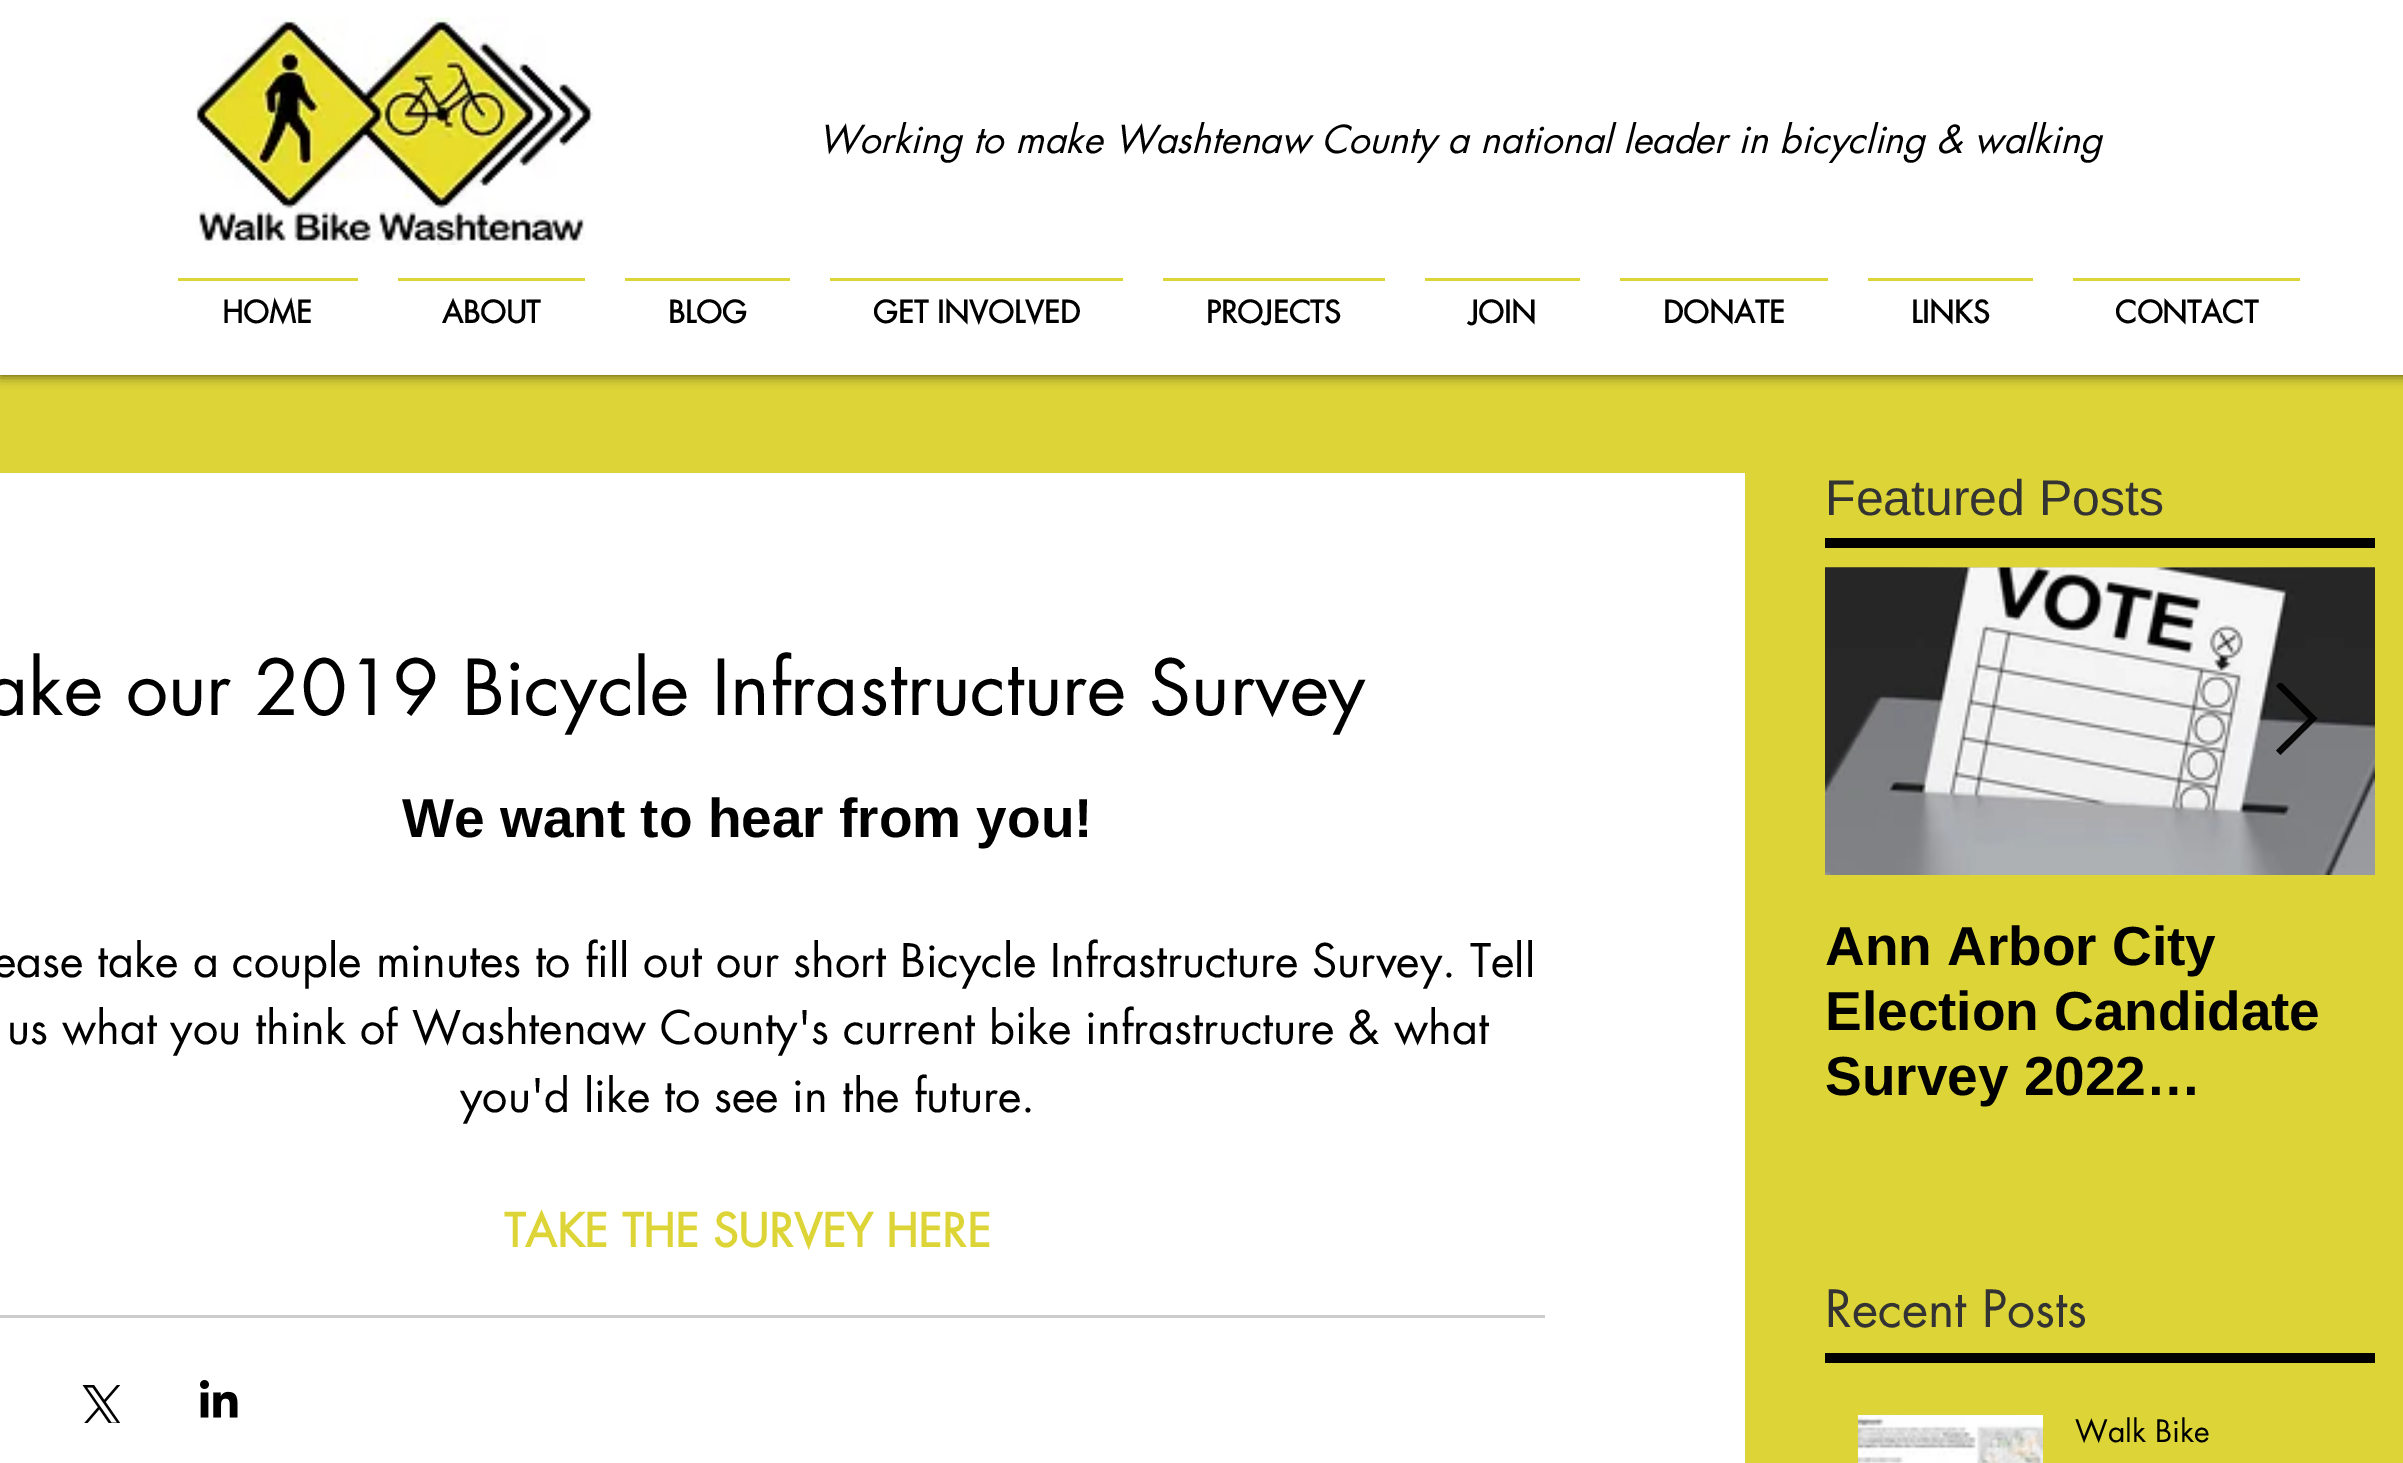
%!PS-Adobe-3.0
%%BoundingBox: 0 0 2403 1463
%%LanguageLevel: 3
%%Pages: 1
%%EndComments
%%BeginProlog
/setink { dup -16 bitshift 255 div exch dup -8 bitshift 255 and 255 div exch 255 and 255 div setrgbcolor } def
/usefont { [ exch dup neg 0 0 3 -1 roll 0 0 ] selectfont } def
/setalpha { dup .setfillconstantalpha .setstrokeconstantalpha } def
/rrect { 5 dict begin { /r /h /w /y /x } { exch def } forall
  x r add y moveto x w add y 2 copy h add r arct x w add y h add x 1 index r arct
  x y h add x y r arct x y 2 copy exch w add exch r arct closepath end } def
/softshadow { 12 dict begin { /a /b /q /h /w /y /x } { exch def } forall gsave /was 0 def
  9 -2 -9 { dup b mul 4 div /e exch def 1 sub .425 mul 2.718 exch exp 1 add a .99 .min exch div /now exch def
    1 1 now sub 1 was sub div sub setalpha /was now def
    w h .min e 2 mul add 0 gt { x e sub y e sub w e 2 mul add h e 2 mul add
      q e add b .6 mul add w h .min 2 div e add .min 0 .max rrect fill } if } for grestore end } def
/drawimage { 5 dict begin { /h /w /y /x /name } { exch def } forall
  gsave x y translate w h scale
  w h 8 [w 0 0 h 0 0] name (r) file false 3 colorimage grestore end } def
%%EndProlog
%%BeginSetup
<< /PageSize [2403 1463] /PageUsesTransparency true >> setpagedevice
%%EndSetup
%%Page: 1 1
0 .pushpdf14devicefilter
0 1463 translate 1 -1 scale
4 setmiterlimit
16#DDD537 setink
0 0 2403 1463 rectfill
16#000000 setink
0 0 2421 375 0 6 0.7 softshadow
16#FFFFFF setink
0 0 2403 375 rectfill
(img1.raw) 195 17 400 228 drawimage
/futura-Italic 37.5 usefont
16#000000 setink
818 153 moveto (Working to make Washtenaw County a national leader in bicycling & walking) show
16#DDD537 setink
178 278 180 3 rectfill
/futura-Bold 30 usefont
16#000000 setink
222 323 moveto (HOME) show
16#DDD537 setink
398 278 187 3 rectfill
16#000000 setink
442 323 moveto (ABOUT) show
16#DDD537 setink
625 278 165 3 rectfill
16#000000 setink
668 323 moveto (BLOG) show
16#DDD537 setink
830 278 293 3 rectfill
16#000000 setink
873 323 moveto (GET INVOLVED) show
16#DDD537 setink
1163 278 222 3 rectfill
16#000000 setink
1206 323 moveto (PROJECTS) show
16#DDD537 setink
1425 278 155 3 rectfill
16#000000 setink
1469 323 moveto (JOIN) show
16#DDD537 setink
1620 278 208 3 rectfill
16#000000 setink
1663 323 moveto (DONATE) show
16#DDD537 setink
1868 278 165 3 rectfill
16#000000 setink
1911 323 moveto (LINKS) show
16#DDD537 setink
2073 278 227 3 rectfill
16#000000 setink
2115 323 moveto (CONTACT) show
/LiberationSans-Regular 50 usefont
16#333333 setink
1825 515 moveto (Featured Posts) show
16#000000 setink
1825 538 550 10 rectfill
16#FFFFFF setink
0 473 1745 990 rectfill
/futura-Regular 75 usefont
16#000000 setink
-15 715 moveto (ake our 2019 Bicycle Infrastructure Survey) show
/LiberationSans-Bold 55 usefont
402 837 moveto (We want to hear from you!) show
/futura-Regular 45 usefont
[
    [(ease take a couple minutes to fill out our short Bicycle Infrastructure Survey. Tell) -7 977]
    [(us what you think of Washtenaw County's current bike infrastructure & what) 7 1044]
    [(you'd like to see in the future.) 460 1112]
] { aload pop moveto show } forall
/futura-Bold 45 usefont
16#DDD537 setink
504 1247 moveto (TAKE THE SURVEY HERE) show
16#CCCCCC setink
0 1315 1545 3 rectfill
(img2.raw) 82 1385 38 38 drawimage
(img3.raw) 200 1380 38 38 drawimage
(img4.raw) 1825 567 550 1 drawimage
(img5.raw) 1825 567 550 308 drawimage
0.9 setalpha
16#000000 setink
2277 686 moveto 2280 683 lineto 2316 718 lineto 2280 754 lineto 2277 751 lineto 2310 718 lineto closepath fill
gsave
2273 683 45 77 rectclip
2 setlinewidth
2277.5 686 moveto 2280.5 683 lineto 2316 718.5 lineto 2280.5 753.5 lineto 2277.5 750.5 lineto 2310 718.5 lineto closepath stroke
grestore
/LiberationSans-Bold 55 usefont
1 setalpha
[
    [(Ann Arbor City) 1825 965]
    [(Election Candidate) 1825 1030]
    [(Survey 2022…) 1825 1095]
] { aload pop moveto show } forall
/futura-Regular 50 usefont
16#333333 setink
1825 1327 moveto (Recent Posts) show
16#000000 setink
1825 1353 550 10 rectfill
(img6.raw) 1858 1415 185 48 drawimage
/futura-Regular 30 usefont
2075 1442 moveto (Walk Bike) show
.poppdf14devicefilter showpage
%%EOF
